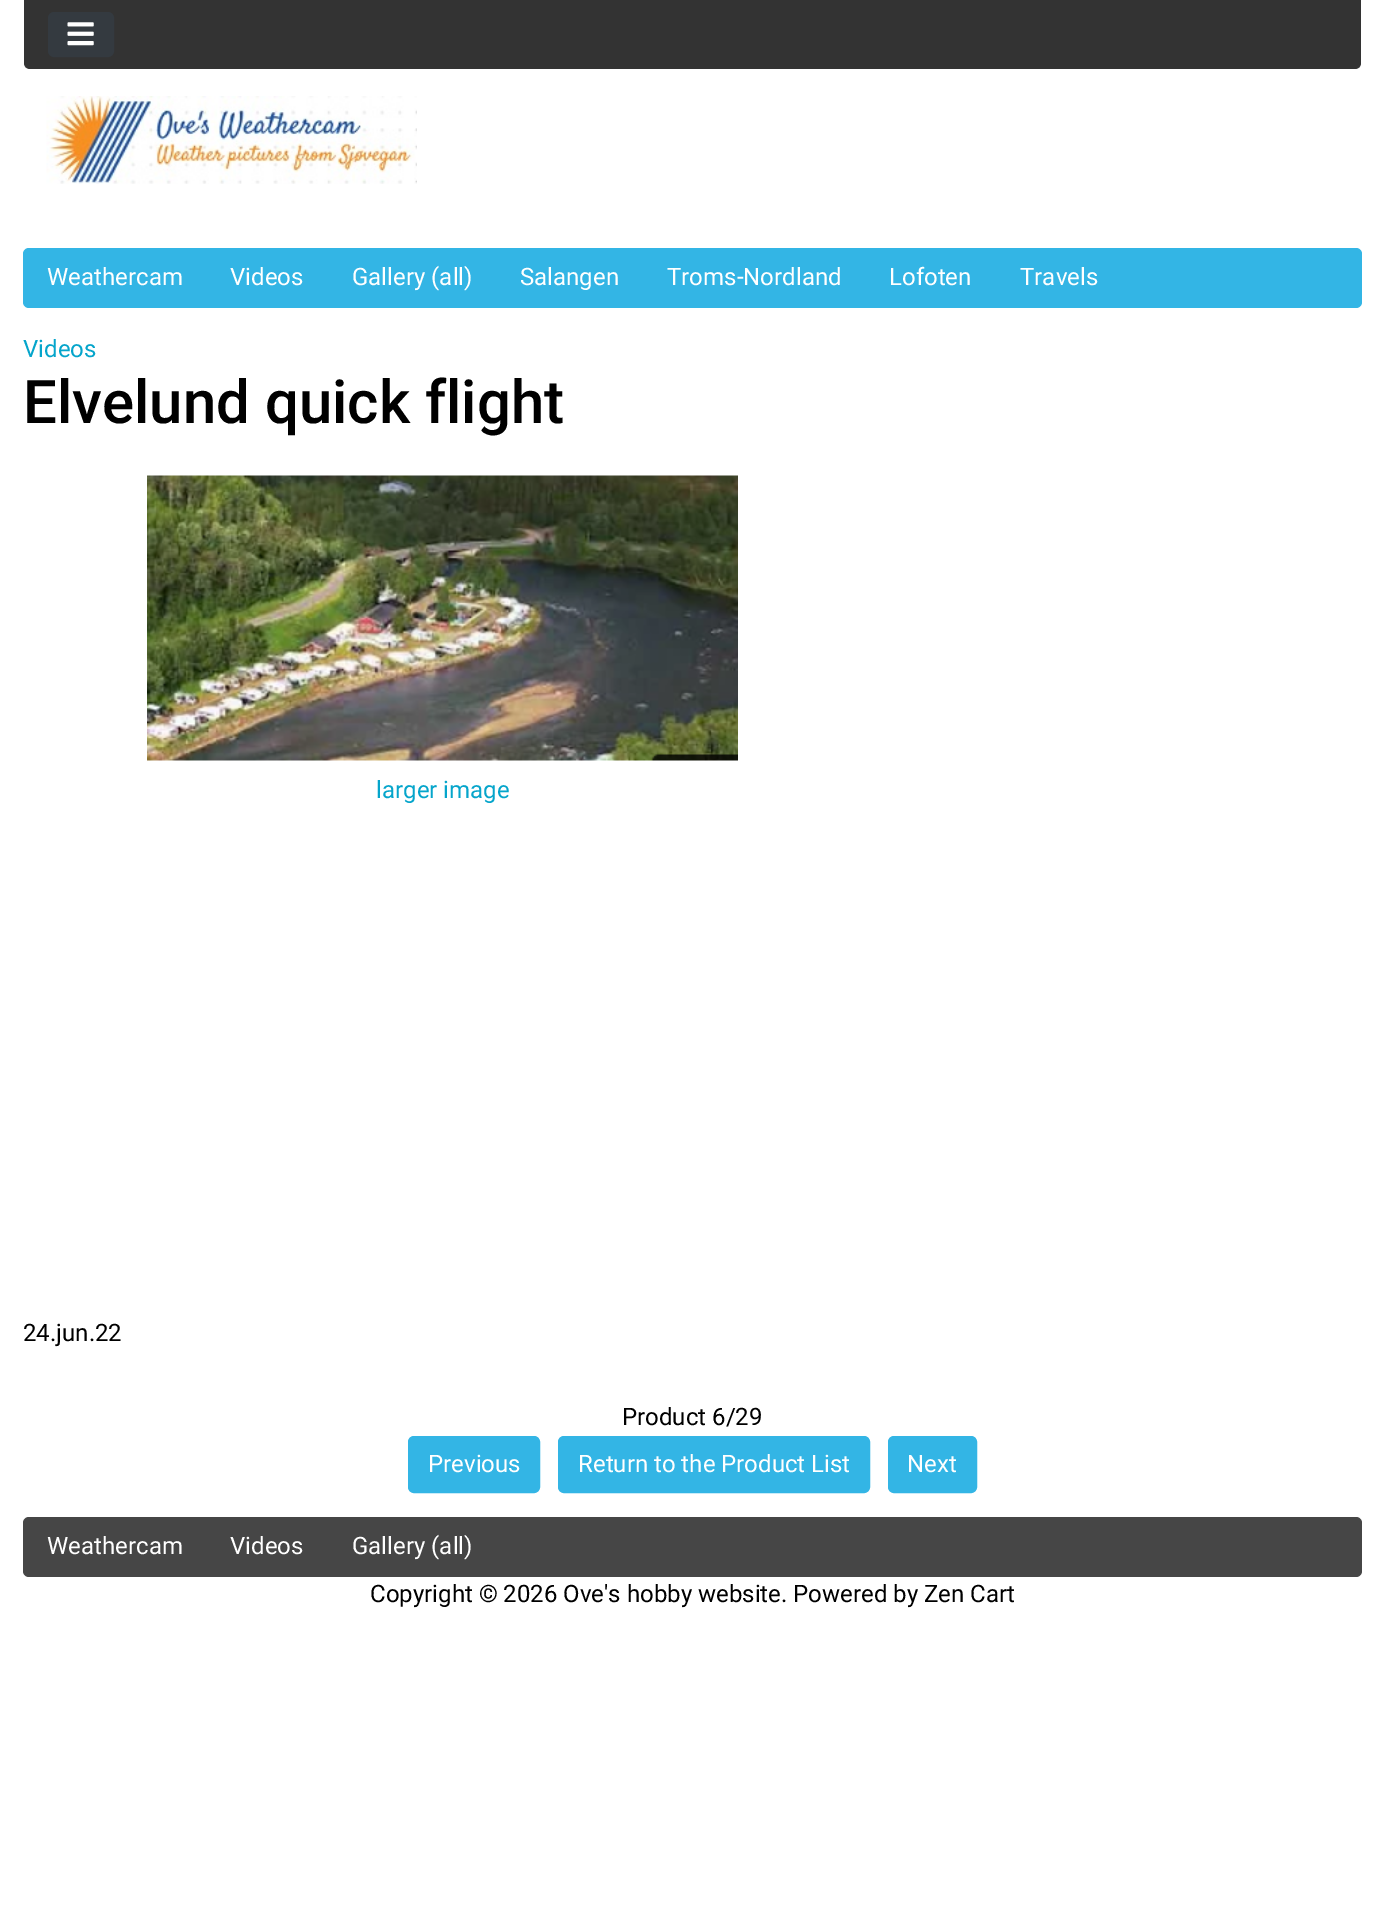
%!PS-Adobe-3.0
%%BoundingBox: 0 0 1384 1923
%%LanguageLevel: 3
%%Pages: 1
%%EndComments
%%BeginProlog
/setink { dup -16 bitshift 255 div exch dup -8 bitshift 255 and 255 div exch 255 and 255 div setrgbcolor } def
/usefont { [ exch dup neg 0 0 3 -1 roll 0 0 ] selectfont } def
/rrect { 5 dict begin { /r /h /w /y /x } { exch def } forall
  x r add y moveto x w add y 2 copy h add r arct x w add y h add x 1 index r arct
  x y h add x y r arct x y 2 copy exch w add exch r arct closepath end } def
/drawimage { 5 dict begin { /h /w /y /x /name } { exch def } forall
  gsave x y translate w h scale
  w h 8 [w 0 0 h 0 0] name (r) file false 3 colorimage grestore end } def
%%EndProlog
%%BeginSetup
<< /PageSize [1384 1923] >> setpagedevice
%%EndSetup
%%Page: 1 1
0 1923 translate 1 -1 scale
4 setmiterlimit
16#FFFFFF setink
0 0 1384 1923 rectfill
16#333333 setink
24 0 moveto 1361 0 lineto 1361 63 lineto 1361 66.5 1358.5 69 1355 69 curveto 30 69 lineto 26.5 69 24 66.5 24 63 curveto closepath fill
16#343A40 setink
49 13 64 43 5 rrect gsave fill grestore
2 setlinewidth
stroke
(img1.raw) 67 22 27 24 drawimage
(img2.raw) 46 96 371 88 drawimage
16#33B5E5 setink
23 248 1339 60 6 rrect fill
/Roboto-Regular 24 usefont
16#FFFFFF setink
[
    [(Weathercam) 47 285]
    [(Videos) 230 285]
    [(Gallery \(all\)) 352 285]
    [(Salangen) 520 285]
    [(Troms-Nordland) 667 285]
    [(Lofoten) 889 285]
    [(Travels) 1020 285]
] { aload pop moveto show } forall
16#05A5CB setink
23 357 moveto (Videos) show
/Roboto-Medium 60 usefont
16#000000 setink
23 423 moveto (Elvelund quick flight) show
(img3.raw) 147 475 591 286 drawimage
/Roboto-Regular 24 usefont
16#05A5CB setink
376 798 moveto (larger image) show
16#000000 setink
23 1341 moveto (24.jun.22) show
622 1425 moveto (Product 6/29) show
16#33B5E5 setink
409 1437 130 55 5 rrect gsave fill grestore
stroke
16#FFFFFF setink
428 1472 moveto (Previous) show
16#33B5E5 setink
559 1437 310 55 5 rrect gsave fill grestore
stroke
16#FFFFFF setink
578 1472 moveto (Return to the Product List) show
16#33B5E5 setink
889 1437 87 55 5 rrect gsave fill grestore
stroke
16#FFFFFF setink
907 1472 moveto (Next) show
16#464646 setink
23 1517 1339 60 6 rrect fill
16#FFFFFF setink
[
    [(Weathercam) 47 1554]
    [(Videos) 230 1554]
    [(Gallery \(all\)) 352 1554]
] { aload pop moveto show } forall
16#000000 setink
370 1602 moveto (Copyright © 2026 Ove's hobby website. Powered by Zen Cart) show
showpage
%%EOF
